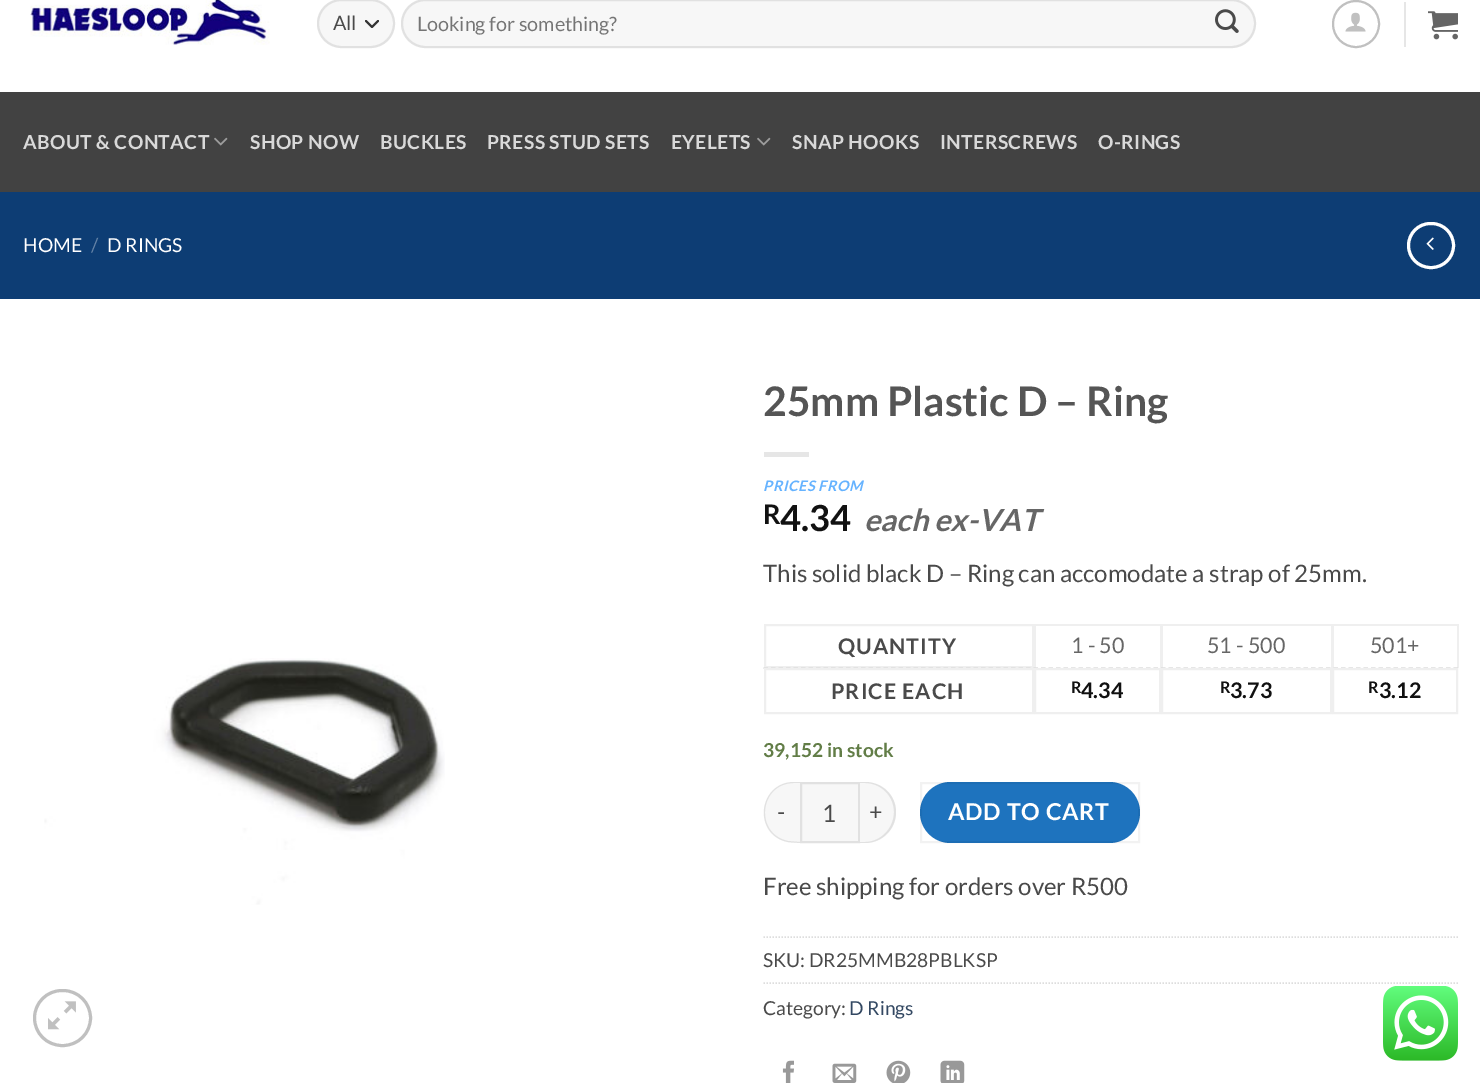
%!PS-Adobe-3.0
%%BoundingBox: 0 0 1480 1083
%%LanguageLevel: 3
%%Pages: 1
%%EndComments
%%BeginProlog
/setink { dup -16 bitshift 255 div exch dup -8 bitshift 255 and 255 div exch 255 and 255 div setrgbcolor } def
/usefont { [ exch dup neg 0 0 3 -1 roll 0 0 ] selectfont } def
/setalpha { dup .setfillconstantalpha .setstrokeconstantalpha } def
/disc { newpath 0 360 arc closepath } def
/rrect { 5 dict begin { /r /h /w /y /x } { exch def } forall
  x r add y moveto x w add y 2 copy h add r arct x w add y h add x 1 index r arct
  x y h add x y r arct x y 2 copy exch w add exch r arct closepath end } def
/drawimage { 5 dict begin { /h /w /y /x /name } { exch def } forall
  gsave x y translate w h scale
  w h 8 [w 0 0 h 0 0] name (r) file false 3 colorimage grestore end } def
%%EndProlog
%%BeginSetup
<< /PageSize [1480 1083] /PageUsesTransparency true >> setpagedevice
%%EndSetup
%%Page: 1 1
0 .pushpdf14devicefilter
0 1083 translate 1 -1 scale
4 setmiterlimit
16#FFFFFF setink
0 0 1480 1083 rectfill
(img1.raw) 30 0 240 45 drawimage
16#F7F7F7 setink
317 -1 78 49 24.5 rrect fill
16#333333 setink
2 setlinewidth
1 setlinecap
1 setlinejoin
366 21 moveto 372 27 lineto 378 21 lineto stroke
0.09 setalpha
16#000000 setink
0 setlinecap
0 setlinejoin
318 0 76 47 23.5 rrect stroke
/Lato-Regular 19.75 usefont
1 setalpha
16#4A4A4A setink
333 30 moveto (All) show
16#F7F7F7 setink
401 -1 855 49 24.5 rrect fill
0.09 setalpha
16#000000 setink
402 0 853 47 23.5 rrect stroke
1 setalpha
16#757575 setink
417 31 moveto (Looking for something?) show
(img2.raw) 1215 9 24 24 drawimage
16#C0C0C0 setink
1356 24 23 disc stroke
(img3.raw) 1345 12 21 20 drawimage
16#E6E6E6 setink
1404 2 2 45 rectfill
(img4.raw) 1428 11 30 29 drawimage
16#424242 setink
0 92 1480 100 rectfill
/Lato-Bold 19.25 usefont
16#D9D9D9 setink
23 149 moveto 0.4 0 (ABOUT & CONTACT) ashow
(img5.raw) 214 137 14 9 drawimage
250 149 moveto 0.4 0 (SHOP NOW) ashow
380 149 moveto 0.4 0 (BUCKLES) ashow
487 149 moveto 0.4 0 (PRESS STUD SETS) ashow
671 149 moveto 0.4 0 (EYELETS) ashow
(img5.raw) 757 137 14 9 drawimage
792 149 moveto 0.4 0 (SNAP HOOKS) ashow
940 149 moveto 0.4 0 (INTERSCREWS) ashow
1098 149 moveto 0.4 0 (O-RINGS) ashow
16#0D3D74 setink
0 192 1480 107 rectfill
/Lato-Regular 19.25 usefont
16#FFFFFF setink
23 252 moveto (HOME) show
16#6281A5 setink
91 252 moveto (/) show
16#FFFFFF setink
107 252 moveto (D RINGS) show
3 setlinewidth
1408.5 223.5 45 44 22 rrect stroke
(img6.raw) 1426 237 8 13 drawimage
(img7.raw) 44 658 401 247 drawimage
16#C0C0C0 setink
34.5 990.5 56 55 27.5 rrect stroke
(img8.raw) 48 1001 28 29 drawimage
/Lato-Bold 40.75 usefont
16#555555 setink
763 416 moveto (25mm Plastic D – Ring) show
16#E6E6E6 setink
764 452 45 5 rectfill
/Lato-BoldItalic 14.5 usefont
16#66B3FF setink
763 491 moveto 0.5 0 (PRICES FROM) ashow
/Lato-Bold 27 usefont
16#111111 setink
763 524 moveto (R) show
/Lato-Bold 36 usefont
780 531 moveto (4.34) show
/Lato-BoldItalic 30.5 usefont
16#666666 setink
864 531 moveto (each ex-VAT) show
/Lato-Regular 24 usefont
16#4A4A4A setink
763 582 moveto (This solid black D – Ring can accomodate a strap of 25mm.) show
16#EFEFEF setink
2 setlinewidth
765 625 268 42 rectstroke
/Lato-Bold 21.5 usefont
16#4A4A4A setink
838 654 moveto 1 0 (QUANTITY) ashow
[
    [1034 624 424 2 16#EFEFEF]
    [1160 624 3 44 16#EFEFEF]
    [1034 624 2 44 16#EFEFEF]
] { aload pop setink rectfill } forall
/Lato-Regular 21.5 usefont
16#666666 setink
1071 653 moveto (1 - 50) show
16#EFEFEF setink
1331 624 3 44 rectfill
16#666666 setink
1207 653 moveto (51 - 500) show
16#EFEFEF setink
1457 624 2 44 rectfill
16#666666 setink
1370 653 moveto (501+) show
16#DDDDDD setink
1.5 setlinewidth
[4.5 3] 0 setdash
763.5 668 moveto 1458 668 lineto stroke
16#EFEFEF setink
2 setlinewidth
[] 0 setdash
765 669 268 44 rectstroke
/Lato-Bold 21.5 usefont
16#4A4A4A setink
831 699 moveto 1 0 (PRICE EACH) ashow
16#EFEFEF setink
1035 669 125 44 rectstroke
/Lato-Bold 16 usefont
16#111111 setink
1071 693 moveto (R) show
/Lato-Bold 21.5 usefont
1081 698 moveto (4.34) show
16#EFEFEF setink
1162 669 169 44 rectstroke
/Lato-Bold 16 usefont
16#111111 setink
1220 693 moveto (R) show
/Lato-Bold 21.5 usefont
1230 698 moveto (3.73) show
16#EFEFEF setink
1333 669 124 44 rectstroke
/Lato-Bold 16 usefont
16#111111 setink
1368 693 moveto (R) show
/Lato-Bold 21.5 usefont
1379 698 moveto (3.12) show
/Lato-Bold 19.25 usefont
16#627D47 setink
763 757 moveto (39,152 in stock) show
16#F7F7F7 setink
794.5 782 moveto 800 782 lineto 800 843 lineto 794.5 843 lineto 777.5 843 764 829.5 764 812.5 curveto 764 795.5 777.5 782 794.5 782 curveto closepath fill
0.09 setalpha
16#000000 setink
794 782 moveto 800 782 lineto 800 843 lineto 788 842 lineto 752 835 758 782 794 782 curveto closepath 794 783 moveto 800 783 lineto 800 842 lineto 788 841 lineto 754 834 759 783 794 783 curveto closepath eofill
/Lato-Regular 23.25 usefont
1 setalpha
16#4A4A4A setink
777 820 moveto 0.75 0 (-) ashow
16#F7F7F7 setink
801 783 moveto 859 783 lineto 859 842 lineto 801 842 lineto closepath gsave fill grestore
16#E1E1E1 setink
stroke
/Lato-Regular 24 usefont
16#4A4A4A setink
822 822 moveto (1) show
16#F7F7F7 setink
860 782 moveto 865.5 782 lineto 882.5 782 896 795.5 896 812.5 curveto 896 829.5 882.5 843 865.5 843 curveto 860 843 lineto closepath fill
0.09 setalpha
16#000000 setink
860 782 moveto 865 782 lineto 882 782 896 795 896 812 curveto 896 829 882 843 865 843 curveto 860 843 lineto closepath 860 783 moveto 865 783 lineto 881 783 894 796 894 812 curveto 894 828 881 842 865 842 curveto 860 842 lineto closepath eofill
/Lato-Regular 23.25 usefont
1 setalpha
16#4A4A4A setink
869 820 moveto 0.75 0 (+) ashow
16#1E73BE setink
920 782 220 61 30.5 rrect fill
0.05 setalpha
16#000000 setink
921 783 218 59 rectstroke
/Lato-Bold 23.25 usefont
1 setalpha
16#FFFFFF setink
948 820 moveto 0.75 0 (ADD TO CART) ashow
/Lato-Regular 24 usefont
16#4A4A4A setink
763 895 moveto (Free shipping for orders over R500) show
16#DDDDDD setink
1.5 setlinewidth
[1.5 1.5] 0 setdash
763.5 937 moveto 1458 937 lineto stroke
/Lato-Regular 19.25 usefont
16#4A4A4A setink
763 967 moveto (SKU: DR25MMB28PBLKSP) show
16#DDDDDD setink
763.5 983 moveto 1458 983 lineto stroke
16#4A4A4A setink
763 1015 moveto (Category:) show
16#334862 setink
849 1015 moveto (D Rings) show
(img9.raw) 782 1060 12 23 drawimage
(img10.raw) 832 1063 25 20 drawimage
(img11.raw) 886 1060 25 23 drawimage
(img12.raw) 940 1060 25 23 drawimage
(img13.raw) 1383 986 75 75 drawimage
.poppdf14devicefilter showpage
%%EOF
